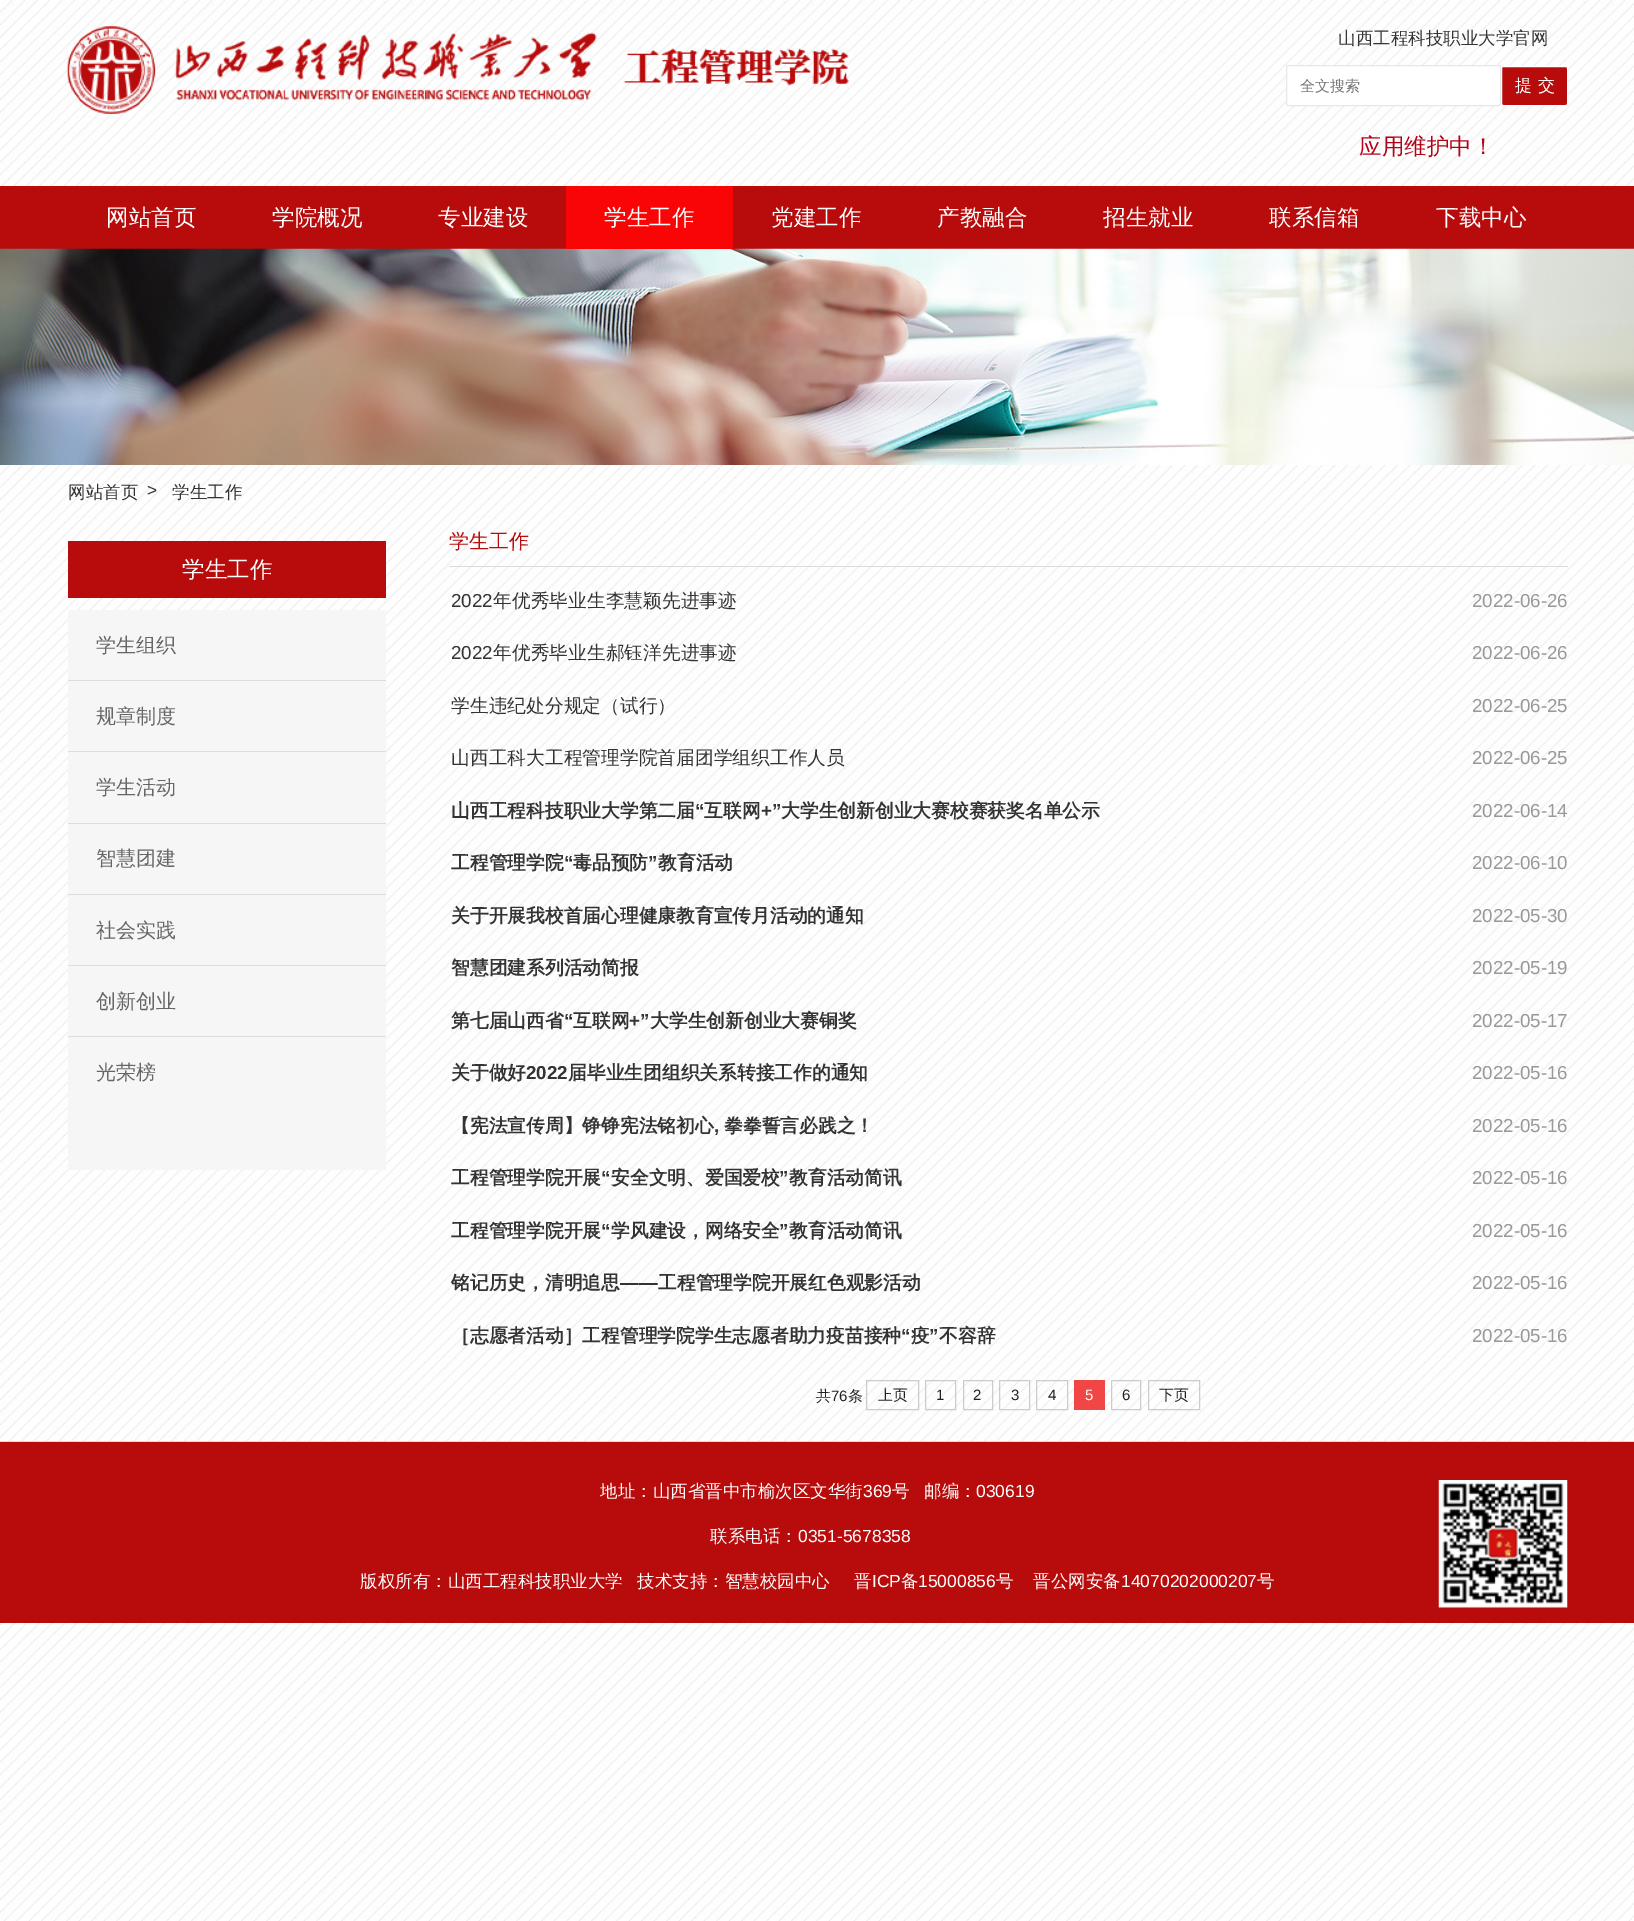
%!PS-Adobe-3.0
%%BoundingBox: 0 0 1634 1921
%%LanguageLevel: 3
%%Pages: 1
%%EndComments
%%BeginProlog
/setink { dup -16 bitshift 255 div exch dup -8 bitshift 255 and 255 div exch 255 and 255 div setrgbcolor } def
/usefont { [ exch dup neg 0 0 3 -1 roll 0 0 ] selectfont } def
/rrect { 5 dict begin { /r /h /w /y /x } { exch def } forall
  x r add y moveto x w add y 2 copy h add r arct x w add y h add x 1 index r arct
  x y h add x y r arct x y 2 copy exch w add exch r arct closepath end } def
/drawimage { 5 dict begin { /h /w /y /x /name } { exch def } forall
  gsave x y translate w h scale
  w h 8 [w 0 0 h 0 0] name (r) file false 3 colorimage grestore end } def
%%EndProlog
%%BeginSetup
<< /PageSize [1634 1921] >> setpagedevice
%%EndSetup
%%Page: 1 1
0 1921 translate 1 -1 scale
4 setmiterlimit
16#FFFFFF setink
0 0 1634 1921 rectfill
(img1.raw) 0 0 1634 1921 drawimage
(img2.raw) 67 26 782 88 drawimage
/WenQuanYiZenHei-Medium 17.5 usefont
16#333333 setink
1338 44 moveto (山西工程科技职业大学官网) show
16#FFFFFF setink
1286.5 65.5 214 40 2 rrect gsave fill grestore
16#E4E7ED setink
stroke
/WenQuanYiZenHei-Medium 15 usefont
16#757575 setink
1300 91 moveto (全文搜索) show
16#B80B0B setink
1501.5 66.5 66 39 2 rrect gsave fill grestore
16#FFFFFF setink
stroke
/WenQuanYiZenHei-Medium 17 usefont
1515 91 moveto 6 0 (提交) ashow
/WenQuanYiZenHei-Medium 22.5 usefont
16#B30216 setink
1359 154 moveto (应用维护中！) show
16#B80B0B setink
0 186 1634 63 rectfill
16#FFFFFF setink
[
    [(网站首页) 106 225]
    [(学院概况) 272 225]
    [(专业建设) 438 225]
] { aload pop moveto show } forall
(img3.raw) 0 248 1634 217 drawimage
16#F90505 setink
566 186 167 63 rectfill
16#FFFFFF setink
[
    [(学生工作) 604 225]
    [(党建工作) 771 225]
    [(产教融合) 937 225]
    [(招生就业) 1103 225]
    [(联系信箱) 1269 225]
    [(下载中心) 1436 225]
] { aload pop moveto show } forall
/WenQuanYiZenHei-Medium 17.5 usefont
16#333333 setink
68 498 moveto (网站首页) show
/LiberationSans-Regular 17.5 usefont
147 496 moveto (>) show
/WenQuanYiZenHei-Medium 17.5 usefont
172 498 moveto (学生工作) show
16#B80B0B setink
68 541 318 57 rectfill
/WenQuanYiZenHei-Medium 22.5 usefont
16#FFFFFF setink
182 577 moveto (学生工作) show
16#F6F6F6 setink
68 610 318 560 rectfill
/WenQuanYiZenHei-Medium 20 usefont
16#666666 setink
96 652 moveto (学生组织) show
16#DDDDDD setink
68 680 318 1 rectfill
16#666666 setink
96 723 moveto (规章制度) show
16#DDDDDD setink
68 751 318 1 rectfill
16#666666 setink
96 794 moveto (学生活动) show
16#DDDDDD setink
68 823 318 1 rectfill
16#666666 setink
96 865 moveto (智慧团建) show
16#DDDDDD setink
68 894 318 1 rectfill
16#666666 setink
96 937 moveto (社会实践) show
16#DDDDDD setink
68 965 318 1 rectfill
16#666666 setink
96 1008 moveto (创新创业) show
16#DDDDDD setink
68 1036 318 1 rectfill
16#666666 setink
96 1079 moveto (光荣榜) show
16#DCDCDC setink
449 566 1119 1 rectfill
16#B80B0B setink
449 548 moveto (学生工作) show
/LiberationSans-Regular 18.75 usefont
16#333333 setink
451 607 moveto (2022) show
/WenQuanYiZenHei-Medium 18.75 usefont
493 607 moveto (年优秀毕业生李慧颖先进事迹) show
/LiberationSans-Regular 18.75 usefont
16#999999 setink
1472 607 moveto (2022-06-26) show
16#333333 setink
451 659 moveto (2022) show
/WenQuanYiZenHei-Medium 18.75 usefont
493 659 moveto (年优秀毕业生郝钰洋先进事迹) show
/LiberationSans-Regular 18.75 usefont
16#999999 setink
1472 659 moveto (2022-06-26) show
/WenQuanYiZenHei-Medium 18.75 usefont
16#333333 setink
451 712 moveto (学生违纪处分规定（试行）) show
/LiberationSans-Regular 18.75 usefont
16#999999 setink
1472 712 moveto (2022-06-25) show
/WenQuanYiZenHei-Medium 18.75 usefont
16#333333 setink
451 764 moveto (山西工科大工程管理学院首届团学组织工作人员) show
/LiberationSans-Regular 18.75 usefont
16#999999 setink
1472 764 moveto (2022-06-25) show
/WenQuanYiZenHei-Bold 18.75 usefont
16#333333 setink
451 817 moveto (山西工程科技职业大学第二届) show
/LiberationSans-Bold 18.75 usefont
695 817 moveto (“) show
/WenQuanYiZenHei-Bold 18.75 usefont
704 817 moveto (互联网) show
/LiberationSans-Bold 18.75 usefont
761 817 moveto (+”) show
/WenQuanYiZenHei-Bold 18.75 usefont
781 817 moveto (大学生创新创业大赛校赛获奖名单公示) show
/LiberationSans-Regular 18.75 usefont
16#999999 setink
1472 817 moveto (2022-06-14) show
/WenQuanYiZenHei-Bold 18.75 usefont
16#333333 setink
451 869 moveto (工程管理学院) show
/LiberationSans-Bold 18.75 usefont
564 869 moveto (“) show
/WenQuanYiZenHei-Bold 18.75 usefont
573 869 moveto (毒品预防) show
/LiberationSans-Bold 18.75 usefont
648 869 moveto (”) show
/WenQuanYiZenHei-Bold 18.75 usefont
658 869 moveto (教育活动) show
/LiberationSans-Regular 18.75 usefont
16#999999 setink
1472 869 moveto (2022-06-10) show
/WenQuanYiZenHei-Bold 18.75 usefont
16#333333 setink
451 922 moveto (关于开展我校首届心理健康教育宣传月活动的通知) show
/LiberationSans-Regular 18.75 usefont
16#999999 setink
1472 922 moveto (2022-05-30) show
/WenQuanYiZenHei-Bold 18.75 usefont
16#333333 setink
451 974 moveto (智慧团建系列活动简报) show
/LiberationSans-Regular 18.75 usefont
16#999999 setink
1472 974 moveto (2022-05-19) show
/WenQuanYiZenHei-Bold 18.75 usefont
16#333333 setink
451 1027 moveto (第七届山西省) show
/LiberationSans-Bold 18.75 usefont
564 1027 moveto (“) show
/WenQuanYiZenHei-Bold 18.75 usefont
573 1027 moveto (互联网) show
/LiberationSans-Bold 18.75 usefont
629 1027 moveto (+”) show
/WenQuanYiZenHei-Bold 18.75 usefont
650 1027 moveto (大学生创新创业大赛铜奖) show
/LiberationSans-Regular 18.75 usefont
16#999999 setink
1472 1027 moveto (2022-05-17) show
/WenQuanYiZenHei-Bold 18.75 usefont
16#333333 setink
451 1079 moveto (关于做好) show
/LiberationSans-Bold 18.75 usefont
526 1079 moveto (2022) show
/WenQuanYiZenHei-Bold 18.75 usefont
568 1079 moveto (届毕业生团组织关系转接工作的通知) show
/LiberationSans-Regular 18.75 usefont
16#999999 setink
1472 1079 moveto (2022-05-16) show
/WenQuanYiZenHei-Bold 18.75 usefont
16#333333 setink
451 1132 moveto (【宪法宣传周】铮铮宪法铭初心) show
/LiberationSans-Bold 18.75 usefont
714 1132 moveto (,) show
/WenQuanYiZenHei-Bold 18.75 usefont
724 1132 moveto (拳拳誓言必践之！) show
/LiberationSans-Regular 18.75 usefont
16#999999 setink
1472 1132 moveto (2022-05-16) show
/WenQuanYiZenHei-Bold 18.75 usefont
16#333333 setink
451 1184 moveto (工程管理学院开展) show
/LiberationSans-Bold 18.75 usefont
601 1184 moveto (“) show
/WenQuanYiZenHei-Bold 18.75 usefont
611 1184 moveto (安全文明、爱国爱校) show
/LiberationSans-Bold 18.75 usefont
779 1184 moveto (”) show
/WenQuanYiZenHei-Bold 18.75 usefont
789 1184 moveto (教育活动简讯) show
/LiberationSans-Regular 18.75 usefont
16#999999 setink
1472 1184 moveto (2022-05-16) show
/WenQuanYiZenHei-Bold 18.75 usefont
16#333333 setink
451 1237 moveto (工程管理学院开展) show
/LiberationSans-Bold 18.75 usefont
601 1237 moveto (“) show
/WenQuanYiZenHei-Bold 18.75 usefont
611 1237 moveto (学风建设，网络安全) show
/LiberationSans-Bold 18.75 usefont
779 1237 moveto (”) show
/WenQuanYiZenHei-Bold 18.75 usefont
789 1237 moveto (教育活动简讯) show
/LiberationSans-Regular 18.75 usefont
16#999999 setink
1472 1237 moveto (2022-05-16) show
/WenQuanYiZenHei-Bold 18.75 usefont
16#333333 setink
451 1289 moveto (铭记历史，清明追思) show
/LiberationSans-Bold 18.75 usefont
620 1289 moveto (——) show
/WenQuanYiZenHei-Bold 18.75 usefont
658 1289 moveto (工程管理学院开展红色观影活动) show
/LiberationSans-Regular 18.75 usefont
16#999999 setink
1472 1289 moveto (2022-05-16) show
/WenQuanYiZenHei-Bold 18.75 usefont
16#333333 setink
451 1342 moveto (［志愿者活动］工程管理学院学生志愿者助力疫苗接种) show
/LiberationSans-Bold 18.75 usefont
901 1342 moveto (“) show
/WenQuanYiZenHei-Bold 18.75 usefont
911 1342 moveto (疫) show
/LiberationSans-Bold 18.75 usefont
929 1342 moveto (”) show
/WenQuanYiZenHei-Bold 18.75 usefont
939 1342 moveto (不容辞) show
/LiberationSans-Regular 18.75 usefont
16#999999 setink
1472 1342 moveto (2022-05-16) show
/WenQuanYiZenHei-Medium 15 usefont
16#222222 setink
816 1401 moveto (共) show
/LiberationSans-Regular 15 usefont
831 1401 moveto (76) show
/WenQuanYiZenHei-Medium 15 usefont
848 1401 moveto (条) show
16#CCCCCC setink
866.5 1380.5 52 29 rectstroke
16#222222 setink
878 1400 moveto (上页) show
16#CCCCCC setink
925.5 1380.5 30 29 rectstroke
/LiberationSans-Regular 15 usefont
16#222222 setink
936 1400 moveto (1) show
16#CCCCCC setink
963.5 1380.5 29 29 rectstroke
16#222222 setink
973 1400 moveto (2) show
16#CCCCCC setink
999.5 1380.5 30 29 rectstroke
16#222222 setink
1011 1400 moveto (3) show
16#CCCCCC setink
1036.5 1380.5 31 29 rectstroke
16#222222 setink
1048 1400 moveto (4) show
16#F04646 setink
1074 1380 31 30 rectfill
16#FFFFFF setink
1085 1400 moveto (5) show
16#CCCCCC setink
1111.5 1380.5 29 29 rectstroke
16#222222 setink
1122 1400 moveto (6) show
16#CCCCCC setink
1148.5 1380.5 51 29 rectstroke
/WenQuanYiZenHei-Medium 15 usefont
16#222222 setink
1159 1400 moveto (下页) show
16#B80B0B setink
0 1442 1634 181 rectfill
16#DCDCDC setink
0 1441 1634 1 rectfill
/WenQuanYiZenHei-Medium 17.5 usefont
16#FFFFFF setink
600 1497 moveto (地址：山西省晋中市榆次区文华街) show
/LiberationSans-Regular 17.5 usefont
863 1497 moveto (369) show
/WenQuanYiZenHei-Medium 17.5 usefont
892 1497 moveto (号) show
924 1497 moveto (邮编：) show
/LiberationSans-Regular 17.5 usefont
976 1497 moveto (030619) show
(img4.raw) 1438 1480 130 128 drawimage
/WenQuanYiZenHei-Medium 17.5 usefont
710 1542 moveto (联系电话：) show
/LiberationSans-Regular 17.5 usefont
798 1542 moveto (0351-5678358) show
/WenQuanYiZenHei-Medium 17.5 usefont
[
    [(版权所有：山西工程科技职业大学) 360 1587]
    [(技术支持：智慧校园中心) 637 1587]
    [(晋) 854 1587]
] { aload pop moveto show } forall
/LiberationSans-Regular 17.5 usefont
872 1587 moveto (ICP) show
/WenQuanYiZenHei-Medium 17.5 usefont
901 1587 moveto (备) show
/LiberationSans-Regular 17.5 usefont
918 1587 moveto (15000856) show
/WenQuanYiZenHei-Medium 17.5 usefont
996 1587 moveto (号) show
1033 1587 moveto (晋公网安备) show
/LiberationSans-Regular 17.5 usefont
1121 1587 moveto (14070202000207) show
/WenQuanYiZenHei-Medium 17.5 usefont
1257 1587 moveto (号) show
showpage
%%EOF
